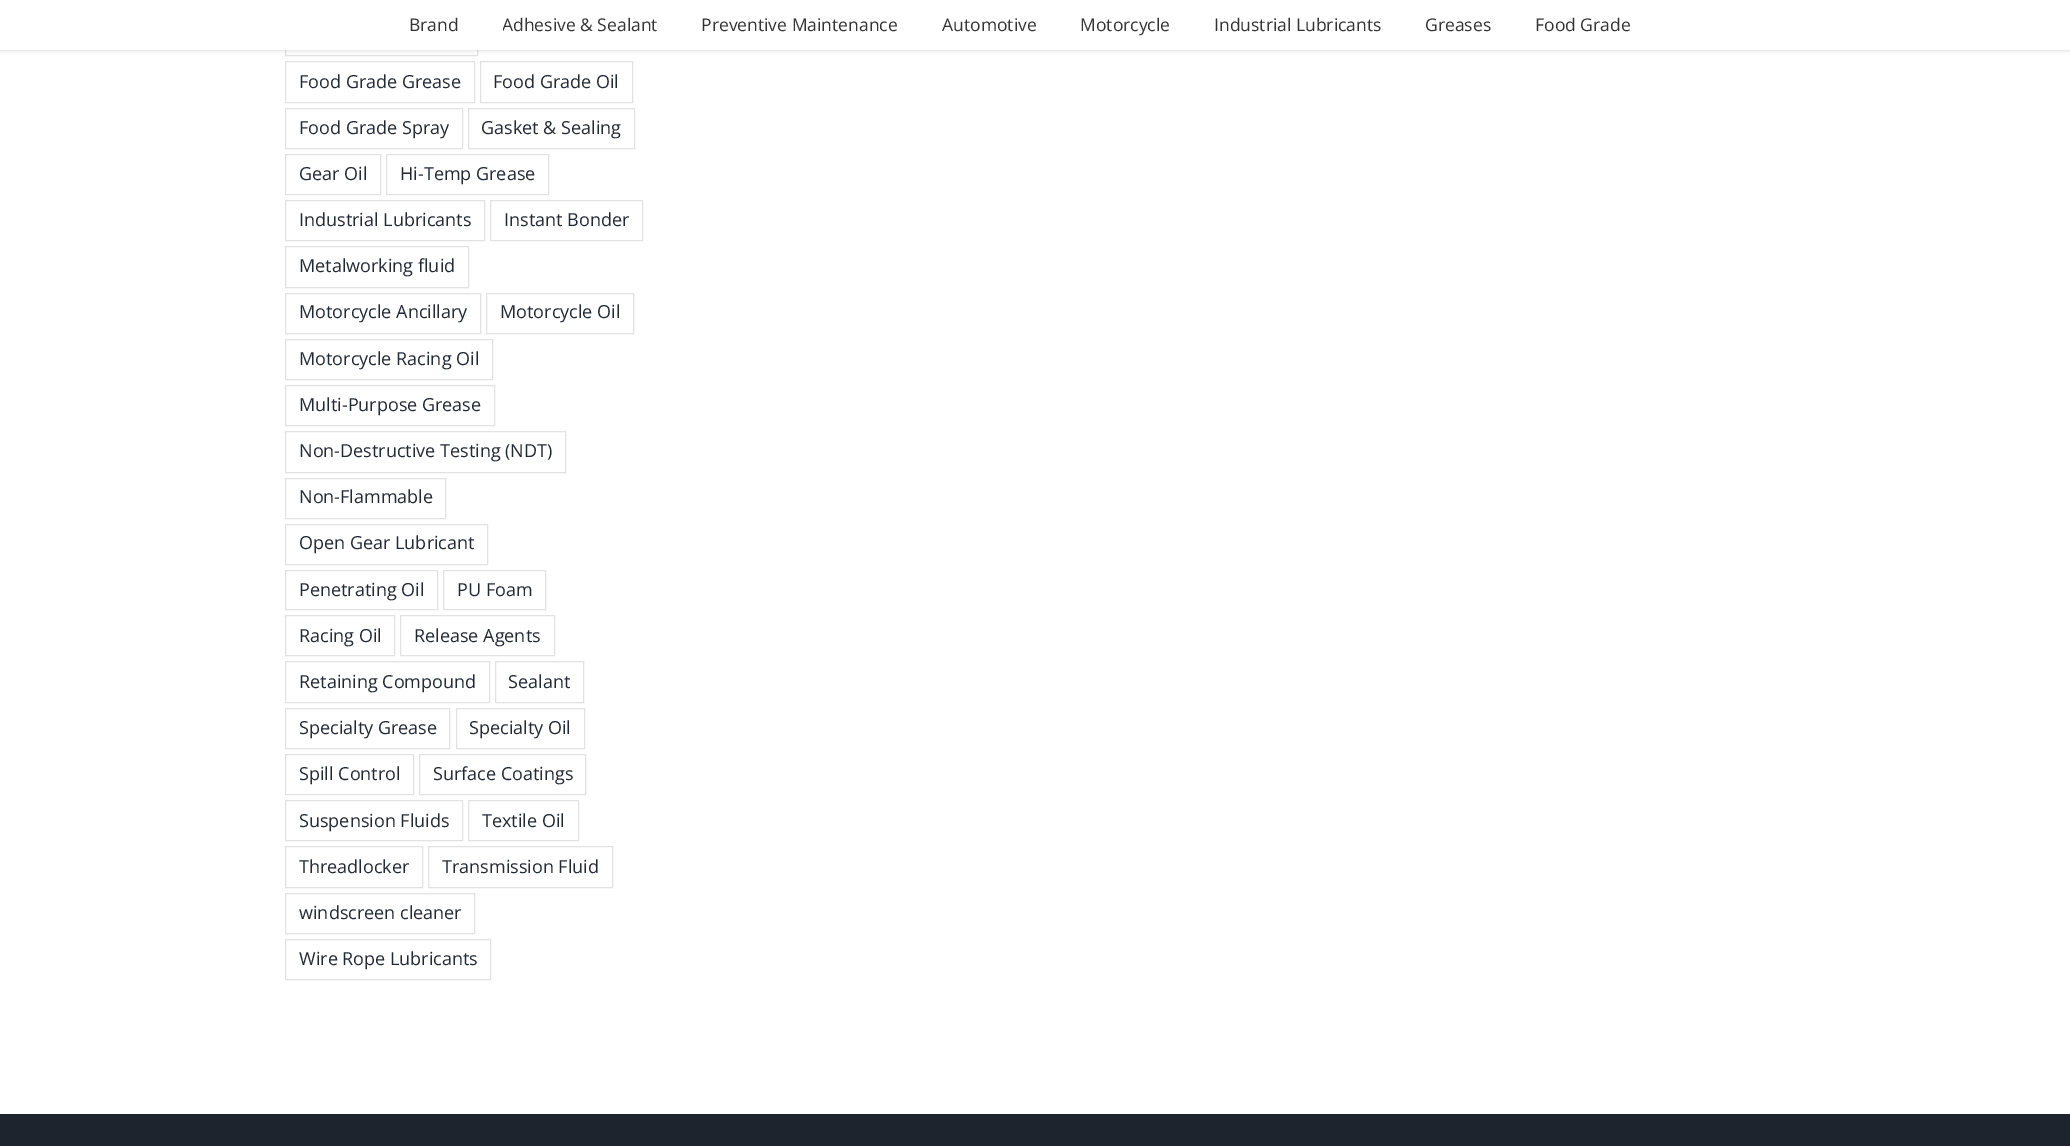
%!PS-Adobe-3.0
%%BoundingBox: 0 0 2070 1146
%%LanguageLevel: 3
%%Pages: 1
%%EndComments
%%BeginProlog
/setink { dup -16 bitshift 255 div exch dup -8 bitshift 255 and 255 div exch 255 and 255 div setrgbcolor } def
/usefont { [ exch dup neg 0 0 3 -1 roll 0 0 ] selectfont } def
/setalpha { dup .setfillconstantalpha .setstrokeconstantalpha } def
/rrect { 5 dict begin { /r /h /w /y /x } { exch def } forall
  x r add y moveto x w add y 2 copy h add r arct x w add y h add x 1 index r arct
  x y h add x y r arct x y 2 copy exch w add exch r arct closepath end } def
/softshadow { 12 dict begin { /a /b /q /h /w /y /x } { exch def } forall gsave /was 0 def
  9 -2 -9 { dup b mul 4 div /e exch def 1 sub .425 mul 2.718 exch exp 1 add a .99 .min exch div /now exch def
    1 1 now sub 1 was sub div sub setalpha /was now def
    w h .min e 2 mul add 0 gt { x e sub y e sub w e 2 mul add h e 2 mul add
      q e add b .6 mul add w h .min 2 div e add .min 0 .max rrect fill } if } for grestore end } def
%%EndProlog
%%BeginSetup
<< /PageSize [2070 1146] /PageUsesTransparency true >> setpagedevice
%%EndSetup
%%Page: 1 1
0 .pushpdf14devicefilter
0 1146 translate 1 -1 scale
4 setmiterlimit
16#FFFFFF setink
0 0 2070 1146 rectfill
16#E2E2E2 setink
285.5 15.5 192 40 rectstroke
16#000000 setink
0 1 2070 50 0 2 0.12 softshadow
16#FFFFFF setink
0 0 2070 50 rectfill
/OpenSans-Regular 17.5 usefont
16#333333 setink
409 31 moveto (Brand) show
gsave
503 0 198 50 rectclip
502 31 moveto (Adhesive & Sealant) show
grestore
[
    [(Preventive Maintenance) 701 31]
    [(Automotive) 942 31]
    [(Motorcycle) 1080 31]
    [(Industrial Lubricants) 1214 31]
    [(Greases) 1425 31]
    [(Food Grade) 1535 31]
] { aload pop moveto show } forall
16#E2E2E2 setink
285.5 61.5 189 41 rectstroke
/OpenSans-Regular 18 usefont
16#212934 setink
299 88 moveto (Food Grade Grease) show
16#E2E2E2 setink
480.5 61.5 152 41 rectstroke
16#212934 setink
493 88 moveto (Food Grade Oil) show
16#E2E2E2 setink
285.5 108.5 177 40 rectstroke
16#212934 setink
299 134 moveto (Food Grade Spray) show
16#E2E2E2 setink
468.5 108.5 166 40 rectstroke
16#212934 setink
481 134 moveto (Gasket & Sealing) show
16#E2E2E2 setink
285.5 154.5 95 40 rectstroke
16#212934 setink
299 180 moveto (Gear Oil) show
16#E2E2E2 setink
386.5 154.5 162 40 rectstroke
16#212934 setink
400 180 moveto (Hi-Temp Grease) show
16#E2E2E2 setink
285.5 200.5 199 40 rectstroke
16#212934 setink
299 226 moveto (Industrial Lubricants) show
16#E2E2E2 setink
490.5 200.5 152 40 rectstroke
16#212934 setink
504 226 moveto (Instant Bonder) show
16#E2E2E2 setink
285.5 246.5 183 41 rectstroke
16#212934 setink
299 272 moveto (Metalworking fluid) show
16#E2E2E2 setink
285.5 293.5 195 40 rectstroke
16#212934 setink
299 318 moveto (Motorcycle Ancillary) show
16#E2E2E2 setink
486.5 293.5 147 40 rectstroke
16#212934 setink
500 318 moveto (Motorcycle Oil) show
16#E2E2E2 setink
285.5 339.5 207 40 rectstroke
16#212934 setink
299 365 moveto (Motorcycle Racing Oil) show
16#E2E2E2 setink
285.5 385.5 209 40 rectstroke
16#212934 setink
299 411 moveto (Multi-Purpose Grease) show
16#E2E2E2 setink
285.5 431.5 280 41 rectstroke
16#212934 setink
299 457 moveto (Non-Destructive Testing \(NDT\)) show
16#E2E2E2 setink
285.5 478.5 160 40 rectstroke
16#212934 setink
299 503 moveto (Non-Flammable) show
16#E2E2E2 setink
285.5 524.5 202 40 rectstroke
16#212934 setink
299 549 moveto (Open Gear Lubricant) show
16#E2E2E2 setink
285.5 570.5 152 39 rectstroke
16#212934 setink
299 596 moveto (Penetrating Oil) show
16#E2E2E2 setink
443.5 570.5 102 39 rectstroke
16#212934 setink
457 596 moveto (PU Foam) show
16#E2E2E2 setink
285.5 615.5 109 40 rectstroke
16#212934 setink
299 642 moveto (Racing Oil) show
16#E2E2E2 setink
400.5 615.5 154 40 rectstroke
16#212934 setink
414 642 moveto (Release Agents) show
16#E2E2E2 setink
285.5 661.5 204 41 rectstroke
16#212934 setink
299 688 moveto (Retaining Compound) show
16#E2E2E2 setink
495.5 661.5 88 41 rectstroke
16#212934 setink
508 688 moveto (Sealant) show
16#E2E2E2 setink
285.5 708.5 164 40 rectstroke
16#212934 setink
299 734 moveto (Specialty Grease) show
16#E2E2E2 setink
456.5 708.5 128 40 rectstroke
16#212934 setink
469 734 moveto (Specialty Oil) show
16#E2E2E2 setink
285.5 754.5 128 40 rectstroke
16#212934 setink
299 780 moveto (Spill Control) show
16#E2E2E2 setink
419.5 754.5 166 40 rectstroke
16#212934 setink
433 780 moveto (Surface Coatings) show
16#E2E2E2 setink
285.5 800.5 177 40 rectstroke
16#212934 setink
299 827 moveto (Suspension Fluids) show
16#E2E2E2 setink
468.5 800.5 110 40 rectstroke
16#212934 setink
482 827 moveto (Textile Oil) show
16#E2E2E2 setink
285.5 846.5 137 41 rectstroke
16#212934 setink
299 873 moveto (Threadlocker) show
16#E2E2E2 setink
428.5 846.5 184 41 rectstroke
16#212934 setink
442 873 moveto (Transmission Fluid) show
16#E2E2E2 setink
285.5 893.5 189 40 rectstroke
16#212934 setink
299 919 moveto (windscreen cleaner) show
16#E2E2E2 setink
285.5 939.5 205 40 rectstroke
16#212934 setink
299 965 moveto (Wire Rope Lubricants) show
16#1D242D setink
0 1114 2070 32 rectfill
.poppdf14devicefilter showpage
%%EOF
